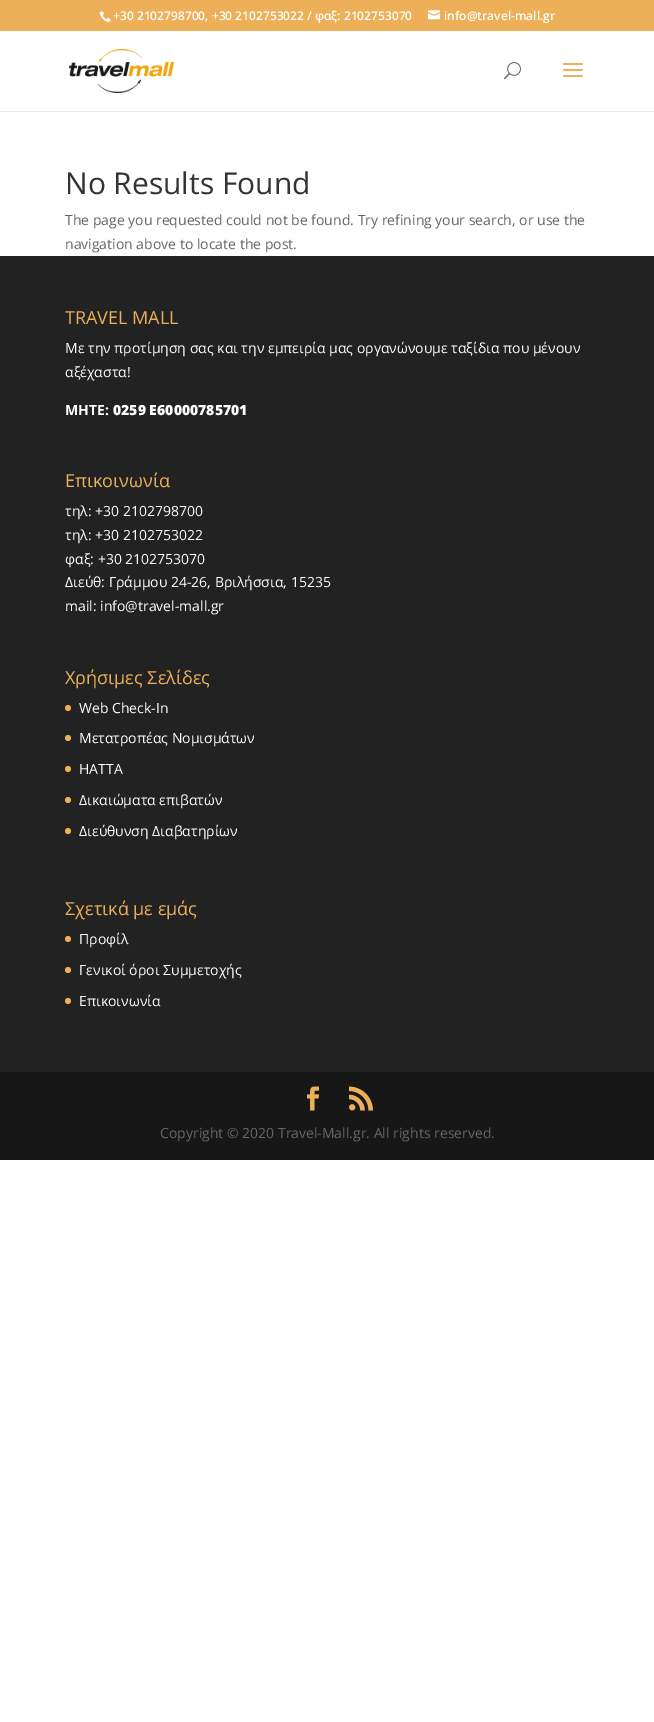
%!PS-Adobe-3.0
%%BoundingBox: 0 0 654 1722
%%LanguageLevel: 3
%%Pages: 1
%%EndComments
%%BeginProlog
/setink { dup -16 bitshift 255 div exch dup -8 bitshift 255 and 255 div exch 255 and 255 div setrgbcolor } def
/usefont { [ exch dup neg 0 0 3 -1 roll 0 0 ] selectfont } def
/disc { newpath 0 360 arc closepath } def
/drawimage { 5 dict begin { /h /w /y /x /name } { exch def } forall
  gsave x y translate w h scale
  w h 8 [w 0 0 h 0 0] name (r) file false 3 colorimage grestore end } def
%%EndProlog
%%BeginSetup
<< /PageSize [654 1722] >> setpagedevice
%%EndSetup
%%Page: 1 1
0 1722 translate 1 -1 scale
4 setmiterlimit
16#FFFFFF setink
0 0 654 1722 rectfill
16#EDB059 setink
0 0 654 31 rectfill
(img1.raw) 99 11 12 12 drawimage
/OpenSans-SemiBold 12 usefont
16#FFFFFF setink
113 20 moveto (+30 2102798700, +30 2102753022 / φαξ: 2102753070) show
(img2.raw) 428 10 12 10 drawimage
444 20 moveto (info@travel-mall.gr) show
16#E6E6E6 setink
0 111 654 1 rectfill
(img3.raw) 69 49 105 44 drawimage
(img4.raw) 504 62 17 18 drawimage
(img5.raw) 563 63 20 14 drawimage
/OpenSans-Regular 30 usefont
16#333333 setink
65 194 moveto (No Results Found) show
/OpenSans-Regular 14 usefont
16#666666 setink
65 225 moveto (The page you requested could not be found. Try refining your search, or use the) show
65 249 moveto (navigation above to locate the post.) show
16#222222 setink
0 256 654 816 rectfill
/OpenSans-Regular 18 usefont
16#EDB059 setink
65 324 moveto (TRAVEL MALL) show
/OpenSans-Regular 14 usefont
16#FFFFFF setink
65 353 moveto (Με την προτίμηση σας και την εμπειρία μας οργανώνουμε ταξίδια που μένουν) show
65 377 moveto (αξέχαστα!) show
/OpenSans-Bold 14 usefont
65 415 moveto (ΜΗΤΕ:) show
/OpenSans-ExtraBold 14 usefont
113 415 moveto (0259 E60000785701) show
/OpenSans-Regular 18 usefont
16#EDB059 setink
65 487 moveto (Επικοινωνία) show
/OpenSans-Regular 14 usefont
16#FFFFFF setink
[
    [(τηλ: +30 2102798700) 65 516]
    [(τηλ: +30 2102753022) 65 540]
    [(φαξ: +30 2102753070) 65 564]
    [(Διεύθ: Γράμμου 24-26, Βριλήσσια, 15235) 65 587]
    [(mail: info@travel-mall.gr) 65 611]
] { aload pop moveto show } forall
/OpenSans-Regular 18 usefont
16#EDB059 setink
65 684 moveto (Χρήσιμες Σελίδες) show
68 708 3 disc fill
/OpenSans-Regular 14 usefont
16#FFFFFF setink
79 713 moveto (Web Check-In) show
16#EDB059 setink
68 738 3 disc fill
16#FFFFFF setink
79 743 moveto (Μετατροπέας Νομισμάτων) show
16#EDB059 setink
68 769 3 disc fill
16#FFFFFF setink
79 774 moveto (HATTA) show
16#EDB059 setink
68 800 3 disc fill
16#FFFFFF setink
79 805 moveto (Δικαιώματα επιβατών) show
16#EDB059 setink
68 831 3 disc fill
16#FFFFFF setink
79 836 moveto (Διεύθυνση Διαβατηρίων) show
/OpenSans-Regular 18 usefont
16#EDB059 setink
65 915 moveto (Σχετικά με εμάς) show
68 939 3 disc fill
/OpenSans-Regular 14 usefont
16#FFFFFF setink
79 944 moveto (Προφίλ) show
16#EDB059 setink
68 970 3 disc fill
16#FFFFFF setink
79 975 moveto (Γενικοί όροι Συμμετοχής) show
16#EDB059 setink
68 1001 3 disc fill
16#FFFFFF setink
79 1006 moveto (Επικοινωνία) show
16#171717 setink
0 1072 654 88 rectfill
(img6.raw) 307 1086 13 25 drawimage
(img7.raw) 349 1086 24 25 drawimage
16#666666 setink
160 1138 moveto (Copyright © 2020 Travel-Mall.gr. All rights reserved.) show
showpage
%%EOF
